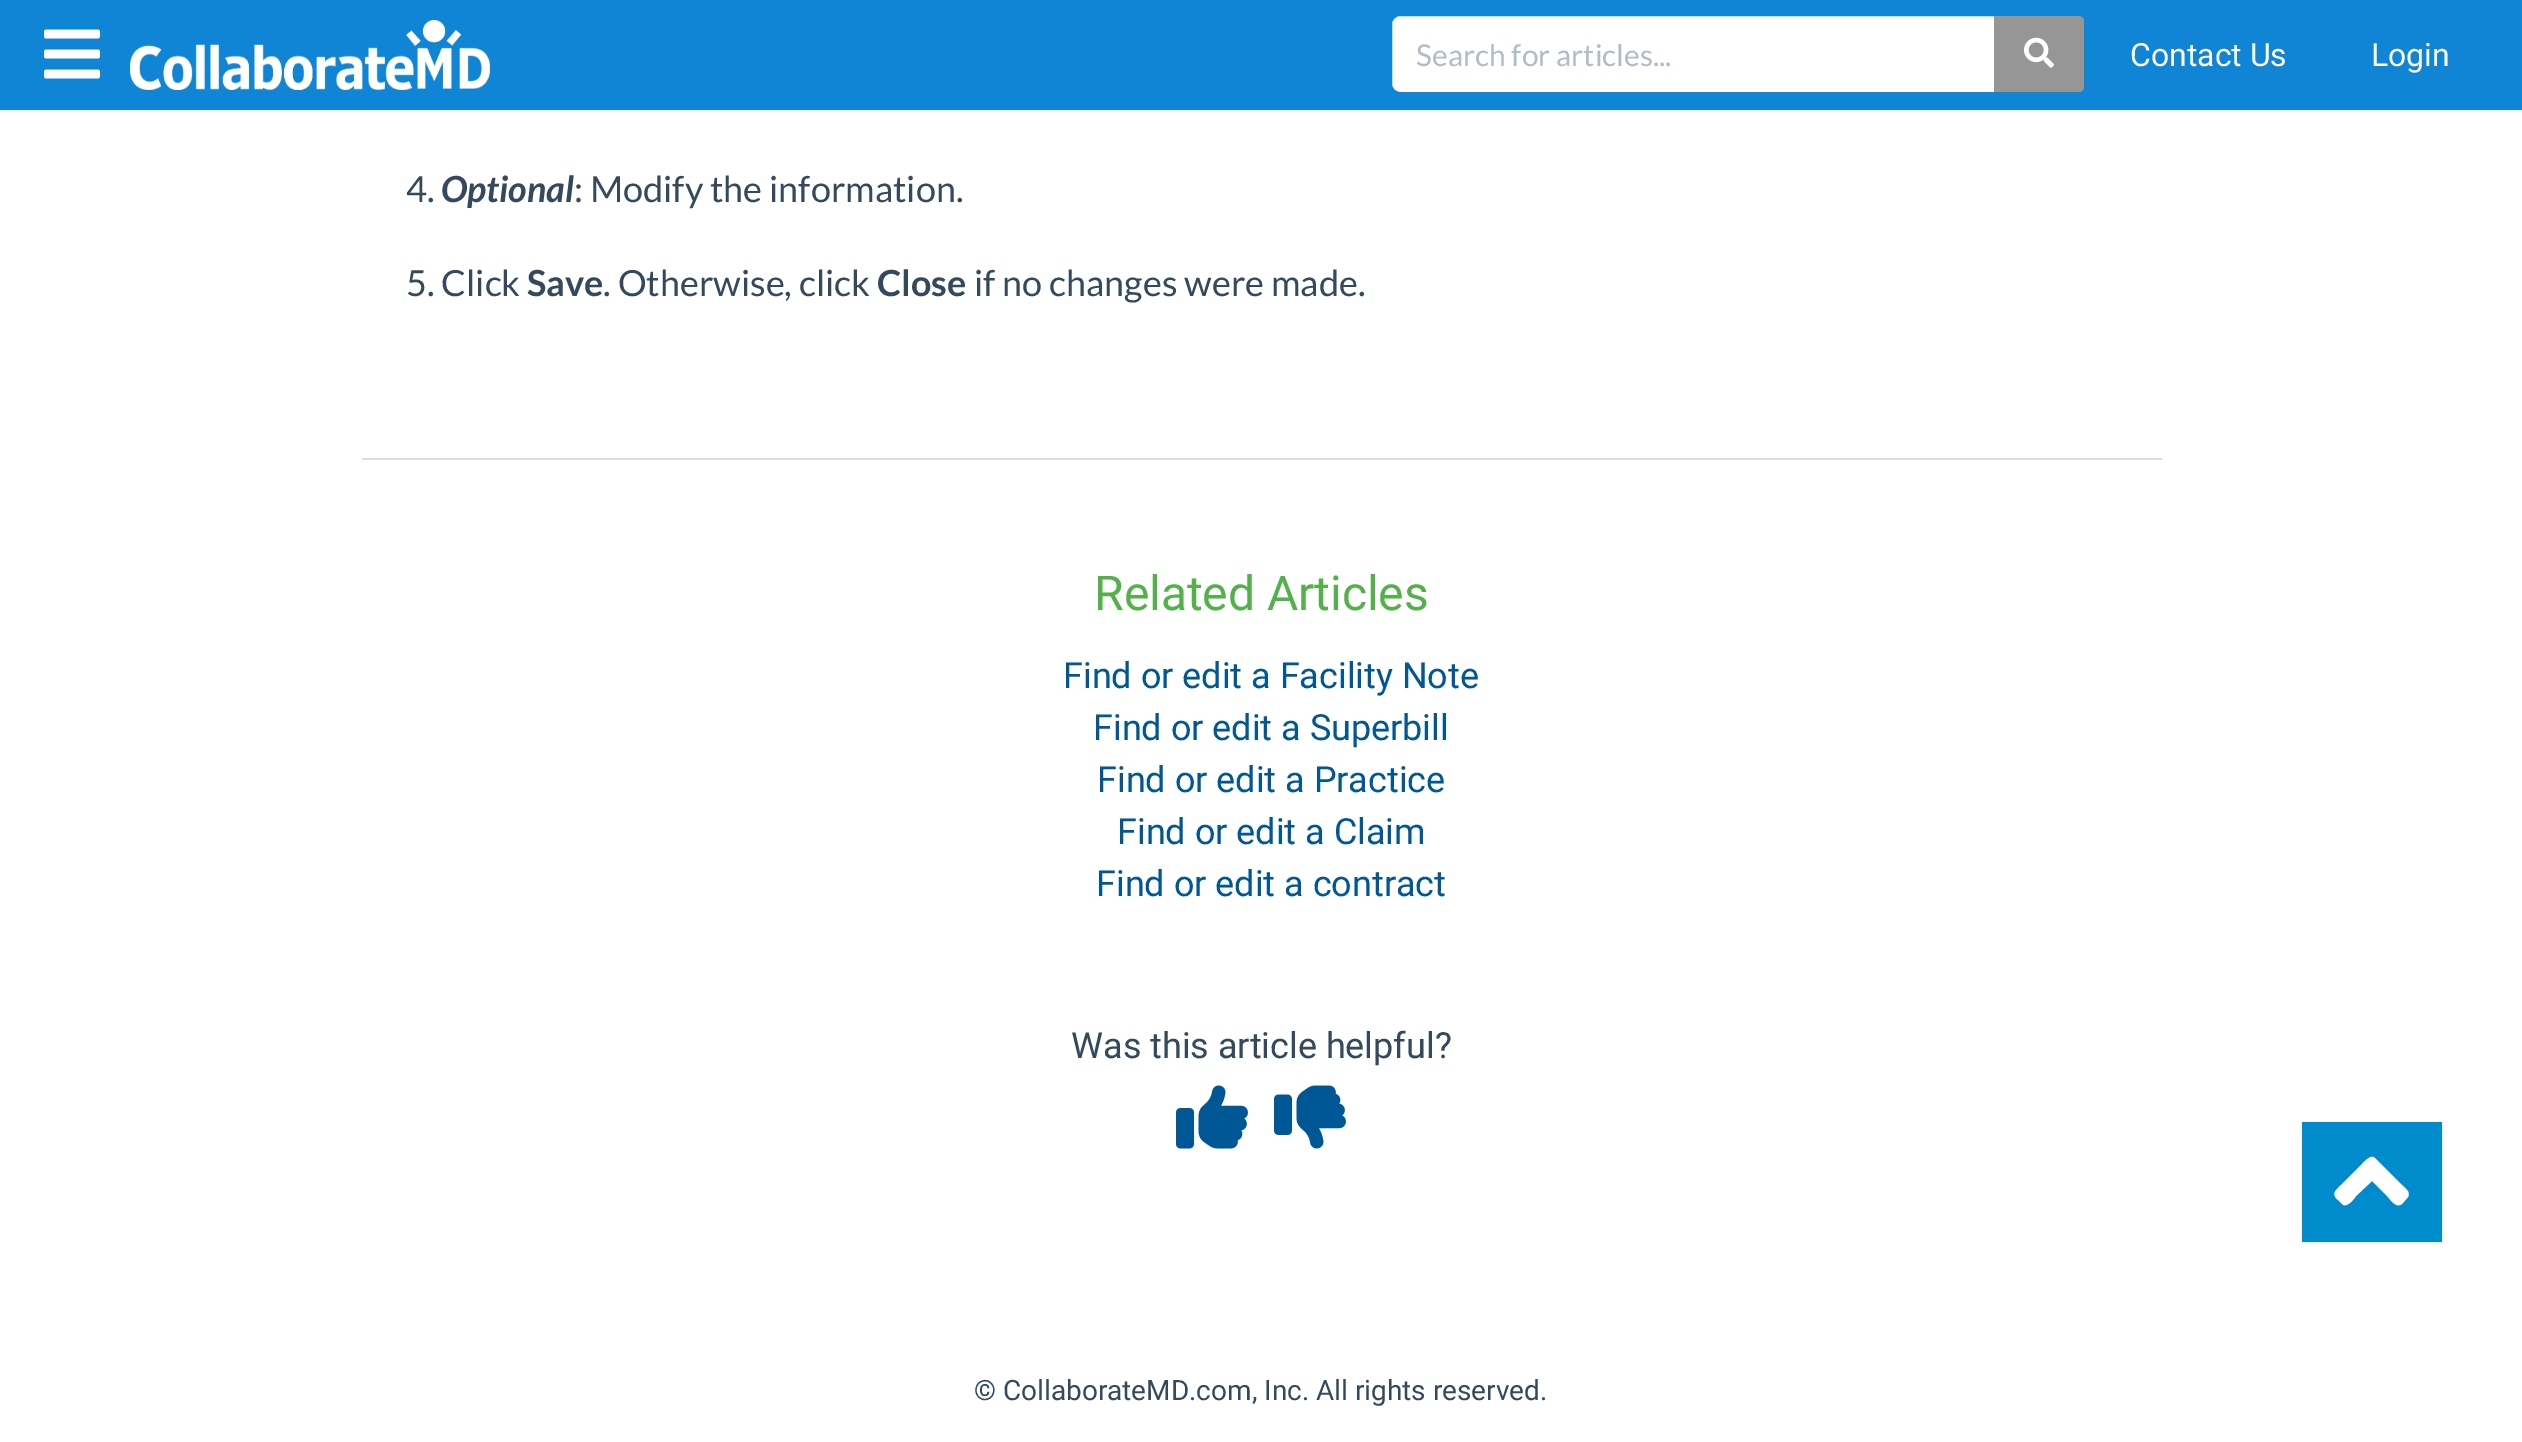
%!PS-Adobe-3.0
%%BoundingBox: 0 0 2522 1442
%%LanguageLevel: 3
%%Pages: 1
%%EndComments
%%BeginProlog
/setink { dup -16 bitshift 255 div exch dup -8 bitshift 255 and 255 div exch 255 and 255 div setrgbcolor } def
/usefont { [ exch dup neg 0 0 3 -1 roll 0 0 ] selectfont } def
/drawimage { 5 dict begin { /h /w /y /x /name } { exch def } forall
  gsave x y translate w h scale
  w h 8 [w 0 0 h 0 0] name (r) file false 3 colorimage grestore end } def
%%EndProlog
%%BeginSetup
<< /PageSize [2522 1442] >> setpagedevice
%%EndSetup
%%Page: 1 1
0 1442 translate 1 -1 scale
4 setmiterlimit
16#FFFFFF setink
0 0 2522 1442 rectfill
16#1084D5 setink
0 0 2522 110 rectfill
(img1.raw) 44 29 56 50 drawimage
(img2.raw) 130 20 360 70 drawimage
16#FFFFFF setink
1400 14 moveto 1998 14 lineto 1998 94 lineto 1400 94 lineto 1394.5 94 1390 89.5 1390 84 curveto 1390 24 lineto 1390 18.5 1394.5 14 1400 14 curveto closepath gsave fill grestore
16#1084D5 setink
4 setlinewidth
stroke
/Lato-Regular 30 usefont
16#B2BCC5 setink
1416 66 moveto (Search for articles...) show
16#969696 setink
1994 16 moveto 2080 16 lineto 2082 16 2084 18 2084 20 curveto 2084 88 lineto 2084 90 2082 92 2080 92 curveto 1994 92 lineto closepath fill
16#1084D5 setink
1994 12 moveto 2080 12 lineto 2084 12 2088 16 2088 20 curveto 2088 88 lineto 2088 92 2084 96 2080 96 curveto 1994 96 lineto closepath 1994 16 moveto 2080 16 lineto 2082 16 2084 18 2084 20 curveto 2084 88 lineto 2084 90 2082 92 2080 92 curveto 1994 92 lineto closepath eofill
(img3.raw) 2024 37 30 31 drawimage
/Roboto-Regular 32 usefont
16#FFFFFF setink
2130 66 moveto (Contact Us) show
2371 66 moveto (Login) show
16#DDDDDD setink
362 458 1800 2 rectfill
/Lato-Regular 36 usefont
16#34495E setink
406 202 moveto (4.) show
/Lato-BoldItalic 36 usefont
441 202 moveto (Optional) show
/Lato-Regular 36 usefont
574 202 moveto (: Modify the information.) show
406 296 moveto (5. Click) show
/Lato-Bold 36 usefont
527 296 moveto (Save) show
/Lato-Regular 36 usefont
603 296 moveto (. Otherwise, click) show
/Lato-Bold 36 usefont
877 296 moveto (Close) show
/Lato-Regular 36 usefont
974 296 moveto (if no changes were made.) show
/Roboto-Regular 48 usefont
16#52B148 setink
1094 610 moveto (Related Articles) show
/Roboto-Regular 36 usefont
16#005796 setink
[
    [(Find or edit a Facility Note) 1063 688]
    [(Find or edit a Superbill) 1093 740]
    [(Find or edit a Practice) 1097 792]
    [(Find or edit a Claim) 1117 844]
    [(Find or edit a contract) 1096 896]
] { aload pop moveto show } forall
16#34495E setink
1071 1058 moveto (Was this article helpful?) show
(img4.raw) 1176 1085 72 64 drawimage
(img5.raw) 1274 1085 72 64 drawimage
16#008CCC setink
2302 1122 140 120 rectfill
16#FFFFFF setink
2375 1158 moveto 2402 1185 lineto 2405 1188 2411 1192 2408 1197 curveto 2402 1204 lineto 2396 1209 2390 1199 2387 1196 curveto 2372 1181 lineto 2356 1196 lineto 2354 1199 2348 1207 2343 1205 curveto 2338 1200 lineto 2331 1194 2335 1191 2341 1185 curveto 2362 1164 lineto 2365 1161 2371 1154 2375 1158 curveto closepath fill
/Roboto-Regular 28 usefont
16#34495E setink
974 1400 moveto (© CollaborateMD.com, Inc. All rights reserved.) show
showpage
%%EOF
